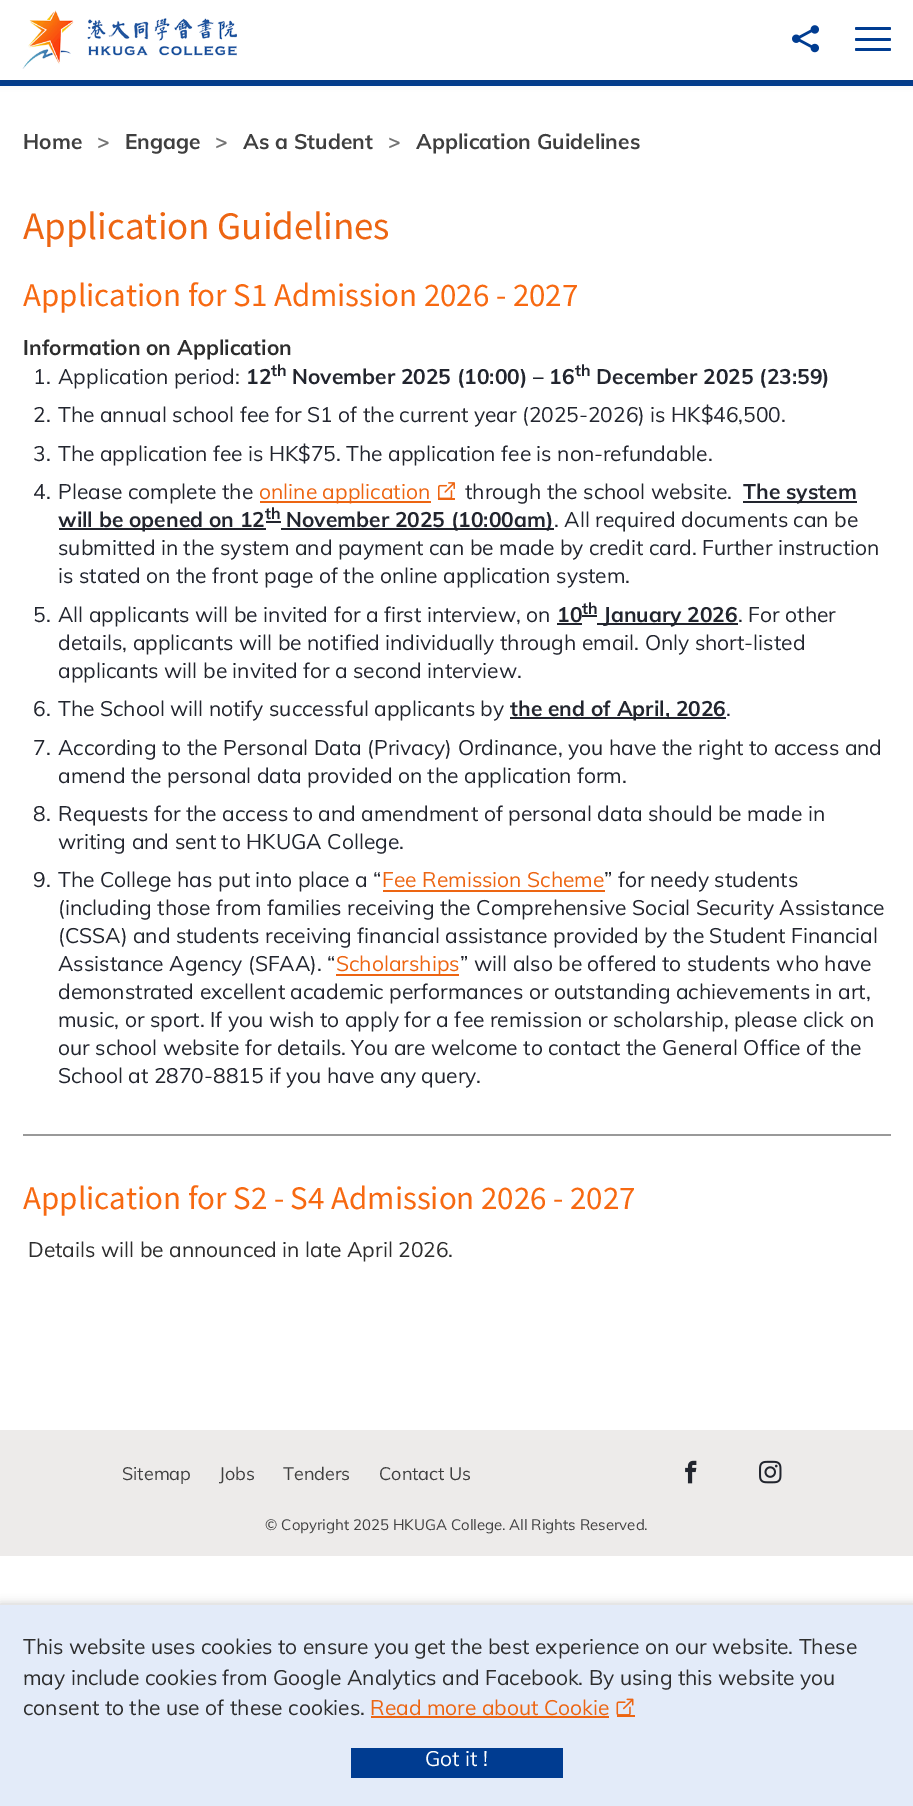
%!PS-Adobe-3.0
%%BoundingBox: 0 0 913 1806
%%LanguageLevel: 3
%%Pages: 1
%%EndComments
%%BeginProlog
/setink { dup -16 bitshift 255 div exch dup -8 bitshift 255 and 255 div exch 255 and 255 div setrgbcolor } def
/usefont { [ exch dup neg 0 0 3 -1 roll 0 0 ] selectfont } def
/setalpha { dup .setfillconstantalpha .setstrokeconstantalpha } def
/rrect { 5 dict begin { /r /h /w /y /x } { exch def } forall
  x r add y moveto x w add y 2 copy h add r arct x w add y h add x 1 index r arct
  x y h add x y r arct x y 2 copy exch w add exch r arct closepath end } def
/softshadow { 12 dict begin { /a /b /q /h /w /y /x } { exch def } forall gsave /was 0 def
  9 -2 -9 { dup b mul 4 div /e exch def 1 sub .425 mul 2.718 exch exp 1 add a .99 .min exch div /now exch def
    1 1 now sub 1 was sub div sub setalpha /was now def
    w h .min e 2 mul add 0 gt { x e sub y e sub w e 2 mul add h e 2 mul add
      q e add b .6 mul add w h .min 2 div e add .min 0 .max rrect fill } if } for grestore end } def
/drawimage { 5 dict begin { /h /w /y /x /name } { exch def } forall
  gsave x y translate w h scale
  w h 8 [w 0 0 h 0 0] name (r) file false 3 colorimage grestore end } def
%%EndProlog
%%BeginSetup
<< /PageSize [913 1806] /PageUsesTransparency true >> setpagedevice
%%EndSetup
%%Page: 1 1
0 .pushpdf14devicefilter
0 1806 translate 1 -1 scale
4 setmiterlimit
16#FFFFFF setink
0 0 913 1806 rectfill
16#003C91 setink
0 80 913 6 rectfill
16#323232 setink
0 3 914 80 0 4 0.15 softshadow
16#FFFFFF setink
0 0 913 80 rectfill
(img1.raw) 22 10 215 59 drawimage
(img2.raw) 792 25 27 28 drawimage
16#003C91 setink
855 27 36 3 1.5 rrect fill
855 38 36 3 1.5 rrect fill
855 48 36 3 1.5 rrect fill
/Muli-Bold 21 usefont
16#3F3F3F setink
23 149 moveto (Home) show
16#737373 setink
97 149 moveto (>) show
16#3F3F3F setink
125 149 moveto (Engage) show
16#737373 setink
215 149 moveto (>) show
16#3F3F3F setink
243 149 moveto (As a Student) show
16#737373 setink
388 149 moveto (>) show
16#3F3F3F setink
416 149 moveto (Application Guidelines) show
/SourceSansPro-Regular 39 usefont
16#ED6512 setink
23 239 moveto (Application Guidelines) show
/SourceSansPro-Regular 33 usefont
16#F76911 setink
23 306 moveto (Application for S1 Admission 2026 - 2027) show
/Muli-Bold 21 usefont
16#2D2D2D setink
23 355 moveto (Information on Application) show
/Muli-Regular 21 usefont
16#22252E setink
33 384 moveto (1.) show
58 384 moveto (Application period:) show
/Muli-Bold 21 usefont
246 384 moveto (12) show
/Muli-Bold 16 usefont
271 376 moveto (th) show
/Muli-Bold 21 usefont
292 384 moveto (November 2025 \(10:00\) – 16) show
/Muli-Bold 16 usefont
575 376 moveto (th) show
/Muli-Bold 21 usefont
596 384 moveto (December 2025 \(23:59\)) show
/Muli-Regular 21 usefont
[
    [(2.) 33 422]
    [(The annual school fee for S1 of the current year \(2025-2026\) is HK$46,500.) 58 422]
    [(3.) 33 461]
    [(The application fee is HK$75. The application fee is non-refundable.) 58 461]
    [(4.) 33 499]
    [(Please complete the) 58 499]
] { aload pop moveto show } forall
16#ED6512 setink
260 501 171 2 rectfill
259 499 moveto (online application) show
438 498 17 2 rectfill
(img3.raw) 438 482 17 16 drawimage
16#22252E setink
465 499 moveto (through the school website.) show
743 501 114 2 rectfill
/Muli-Bold 21 usefont
743 499 moveto (The system) show
59 528 207 2 rectfill
58 527 moveto (will be opened on 12) show
266 521 15 2 rectfill
/Muli-Bold 16 usefont
265 519 moveto (th) show
281 528 273 2 rectfill
/Muli-Bold 21 usefont
286 527 moveto (November 2025 \(10:00am\)) show
/Muli-Regular 21 usefont
[
    [(. All required documents can be) 554 527]
    [(submitted in the system and payment can be made by credit card. Further instruction) 58 555]
    [(is stated on the front page of the online application system.) 58 583]
    [(5.) 33 622]
    [(All applicants will be invited for a first interview, on) 58 622]
] { aload pop moveto show } forall
/Muli-Bold 21 usefont
557 622 moveto (10) show
557 623 25 2 rectfill
582 615 15 2 rectfill
/Muli-Bold 16 usefont
582 614 moveto (th) show
597 623 141 2 rectfill
/Muli-Bold 21 usefont
603 622 moveto (January 2026) show
/Muli-Regular 21 usefont
[
    [(. For other) 738 622]
    [(details, applicants will be notified individually through email. Only short-listed) 58 650]
    [(applicants will be invited for a second interview.) 58 678]
    [(6.) 33 716]
    [(The School will notify successful applicants by) 58 716]
] { aload pop moveto show } forall
510 717 216 2 rectfill
/Muli-Bold 21 usefont
510 716 moveto (the end of April, 2026) show
/Muli-Regular 21 usefont
[
    [(.) 726 716]
    [(7.) 33 755]
    [(According to the Personal Data \(Privacy\) Ordinance, you have the right to access and) 58 755]
    [(amend the personal data provided on the application form.) 58 783]
    [(8.) 33 821]
    [(Requests for the access to and amendment of personal data should be made in) 58 821]
    [(writing and sent to HKUGA College.) 58 849]
    [(9.) 33 887]
    [(The College has put into place a “) 58 887]
] { aload pop moveto show } forall
16#ED6512 setink
382 887 moveto (Fee Remission Scheme) show
383 890 222 2 rectfill
16#22252E setink
[
    [(” for needy students) 604 887]
    [(\(including those from families receiving the Comprehensive Social Security Assistance) 58 915]
    [(\(CSSA\) and students receiving financial assistance provided by the Student Financial) 58 943]
    [(Assistance Agency \(SFAA\). “) 58 971]
] { aload pop moveto show } forall
16#ED6512 setink
336 974 123 2 rectfill
336 971 moveto (Scholarships) show
16#22252E setink
[
    [(” will also be offered to students who have) 460 971]
    [(demonstrated excellent academic performances or outstanding achievements in art,) 58 999]
    [(music, or sport. If you wish to apply for a fee remission or scholarship, please click on) 58 1027]
    [(our school website for details. You are welcome to contact the General Office of the) 58 1055]
    [(School at 2870-8815 if you have any query.) 58 1083]
] { aload pop moveto show } forall
16#999999 setink
23 1134 868 2 rectfill
/SourceSansPro-Regular 33 usefont
16#F76911 setink
23 1209 moveto (Application for S2 - S4 Admission 2026 - 2027) show
/Muli-Regular 21 usefont
16#2D2D2D setink
28 1257 moveto (Details will be announced in late April 2026.) show
16#EDEBEA setink
0 1430 913 126 rectfill
/Muli-Regular 18 usefont
16#3F3F3F setink
[
    [(Sitemap) 122 1480]
    [(Jobs) 219 1480]
    [(Tenders) 283 1480]
    [(Contact Us) 379 1480]
] { aload pop moveto show } forall
(img4.raw) 685 1460 12 24 drawimage
(img5.raw) 759 1460 23 24 drawimage
/Muli-Regular 15 usefont
265 1530 moveto (© Copyright 2025 HKUGA College. All Rights Reserved.) show
16#000000 setink
0 1604 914 201 0 4.5 0.2 softshadow
16#E3EBF9 setink
0 1605 913 201 rectfill
/Muli-Regular 21 usefont
16#2D2D2D setink
[
    [(This website uses cookies to ensure you get the best experience on our website. These) 23 1654]
    [(may include cookies from Google Analytics and Facebook. By using this website you) 23 1685]
    [(consent to the use of these cookies.) 23 1715]
] { aload pop moveto show } forall
16#ED6512 setink
370 1715 moveto (Read more about Cookie) show
371 1716 238 2 rectfill
617 1715 18 2 rectfill
(img6.raw) 616 1698 18 17 drawimage
16#003C91 setink
351 1748 212 30 rectfill
16#FFFFFF setink
425 1766 moveto (Got it !) show
.poppdf14devicefilter showpage
%%EOF
